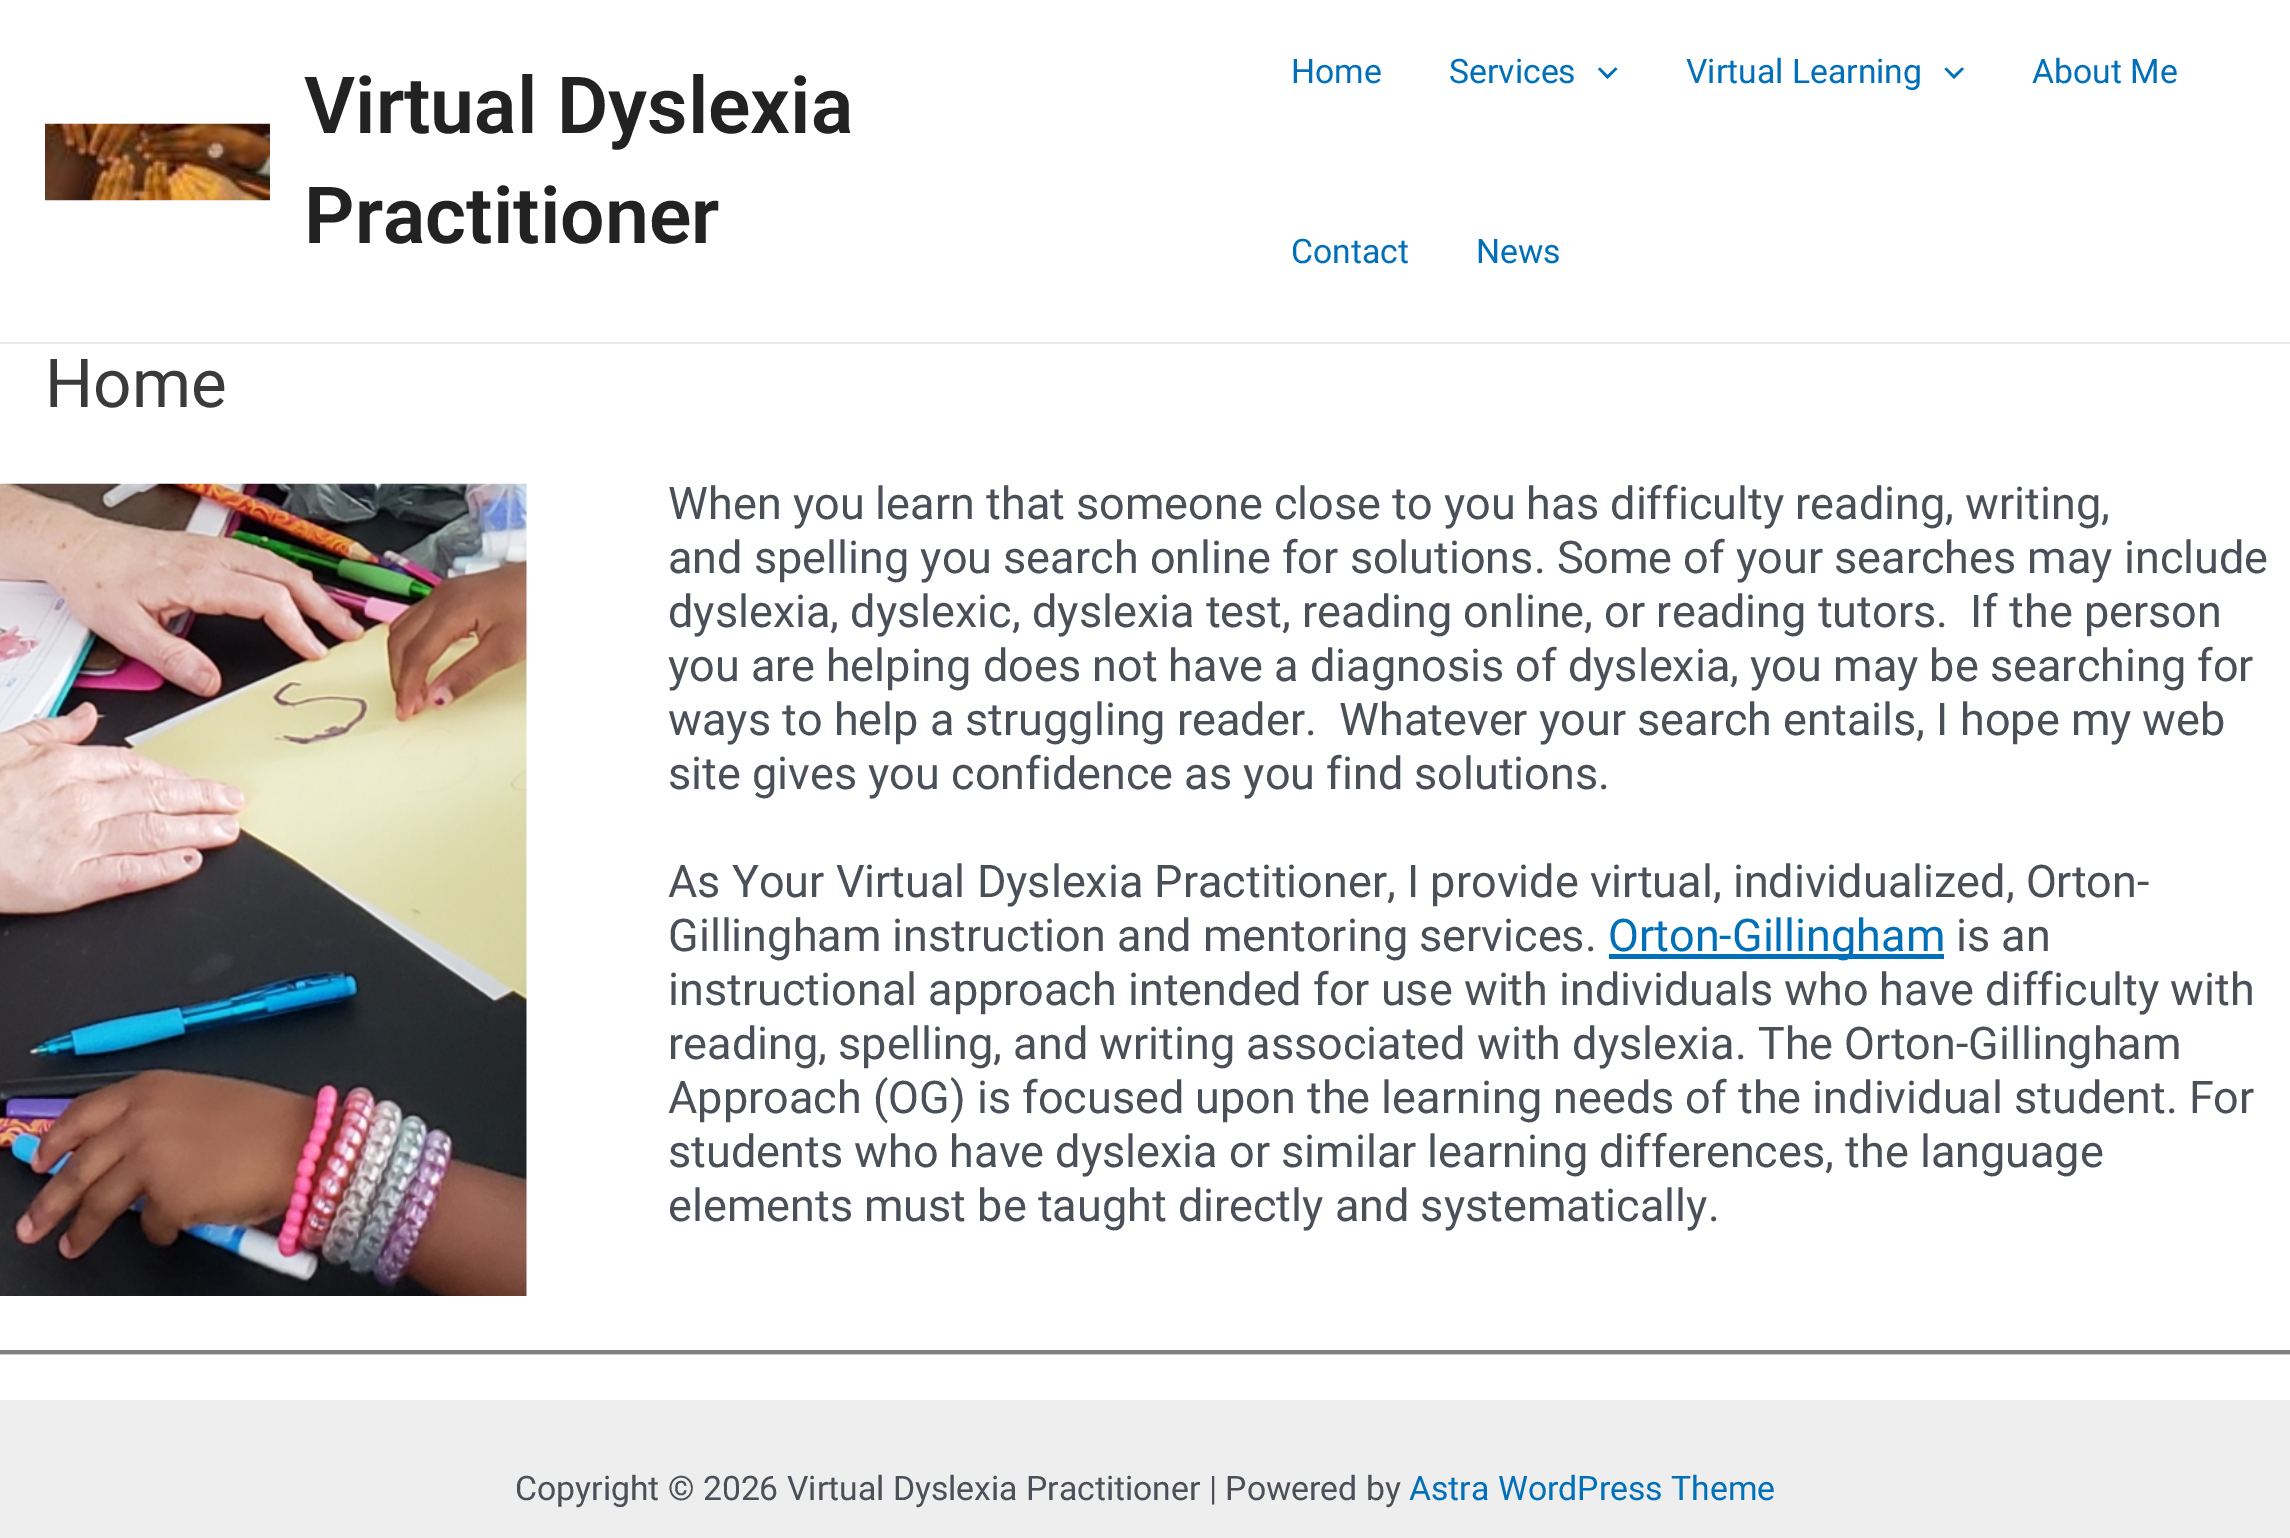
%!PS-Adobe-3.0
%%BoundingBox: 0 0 2290 1538
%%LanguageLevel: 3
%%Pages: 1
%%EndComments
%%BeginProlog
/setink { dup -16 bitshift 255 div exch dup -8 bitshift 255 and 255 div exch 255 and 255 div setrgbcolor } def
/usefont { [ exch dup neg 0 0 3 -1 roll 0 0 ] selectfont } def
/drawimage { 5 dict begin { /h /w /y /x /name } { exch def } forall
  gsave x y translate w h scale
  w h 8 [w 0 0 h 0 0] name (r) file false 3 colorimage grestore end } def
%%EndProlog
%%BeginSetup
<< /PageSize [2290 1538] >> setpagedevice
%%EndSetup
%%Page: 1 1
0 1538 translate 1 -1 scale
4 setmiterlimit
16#FFFFFF setink
0 0 2290 1538 rectfill
16#EAEAEA setink
0 342 2290 2 rectfill
(img1.raw) 45 123 225 78 drawimage
/Roboto-SemiBold 78.75 usefont
16#222222 setink
304 133 moveto (Virtual Dyslexia) show
304 243 moveto (Practitioner) show
/Roboto-Regular 33.75 usefont
16#0170B9 setink
1291 83 moveto (Home) show
1449 83 moveto (Services) show
1598 69 moveto 1607.5 79 lineto 1617.5 69 lineto 1615.5 67.5 lineto 1607.5 75 lineto 1600 67.5 lineto closepath fill
1686 83 moveto (Virtual Learning) show
1944.5 69 moveto 1954 79 lineto 1964 69 lineto 1962 67.5 lineto 1954 75 lineto 1946.5 67.5 lineto closepath fill
[
    [(About Me) 2032 83]
    [(Contact) 1291 263]
    [(News) 1476 263]
] { aload pop moveto show } forall
/Roboto-Regular 67.5 usefont
16#3A3A3A setink
45 407 moveto (Home) show
(img2.raw) 0 483 527 813 drawimage
/Roboto-Regular 45 usefont
16#4B4F58 setink
[
    [(When you learn that someone close to you has difficulty reading, writing,) 668 519]
    [(and spelling you search online for solutions. Some of your searches may include) 668 573]
    [(dyslexia, dyslexic, dyslexia test, reading online, or reading tutors.  If the person) 668 627]
    [(you are helping does not have a diagnosis of dyslexia, you may be searching for) 668 681]
    [(ways to help a struggling reader.  Whatever your search entails, I hope my web) 668 735]
    [(site gives you confidence as you find solutions.) 668 789]
    [(As Your Virtual Dyslexia Practitioner, I provide virtual, individualized, Orton-) 668 897]
    [(Gillingham instruction and mentoring services.) 668 951]
] { aload pop moveto show } forall
16#0170B9 setink
1609 954 335 5 rectfill
1608 951 moveto (Orton-Gillingham) show
16#4B4F58 setink
[
    [(is an) 1956 951]
    [(instructional approach intended for use with individuals who have difficulty with) 668 1005]
    [(reading, spelling, and writing associated with dyslexia. The Orton-Gillingham) 668 1059]
    [(Approach \(OG\) is focused upon the learning needs of the individual student. For) 668 1113]
    [(students who have dyslexia or similar learning differences, the language) 668 1167]
    [(elements must be taught directly and systematically.) 668 1221]
] { aload pop moveto show } forall
[
    [0 1354 2290 1 16#CCCCCC]
    [0 1350 2290 4 16#808080]
    [0 1400 2290 138 16#EEEEEE]
] { aload pop setink rectfill } forall
/Roboto-Regular 33.75 usefont
16#4B4F58 setink
515 1500 moveto (Copyright © 2026 Virtual Dyslexia Practitioner | Powered by) show
16#0170B9 setink
1409 1500 moveto (Astra WordPress Theme) show
showpage
%%EOF
